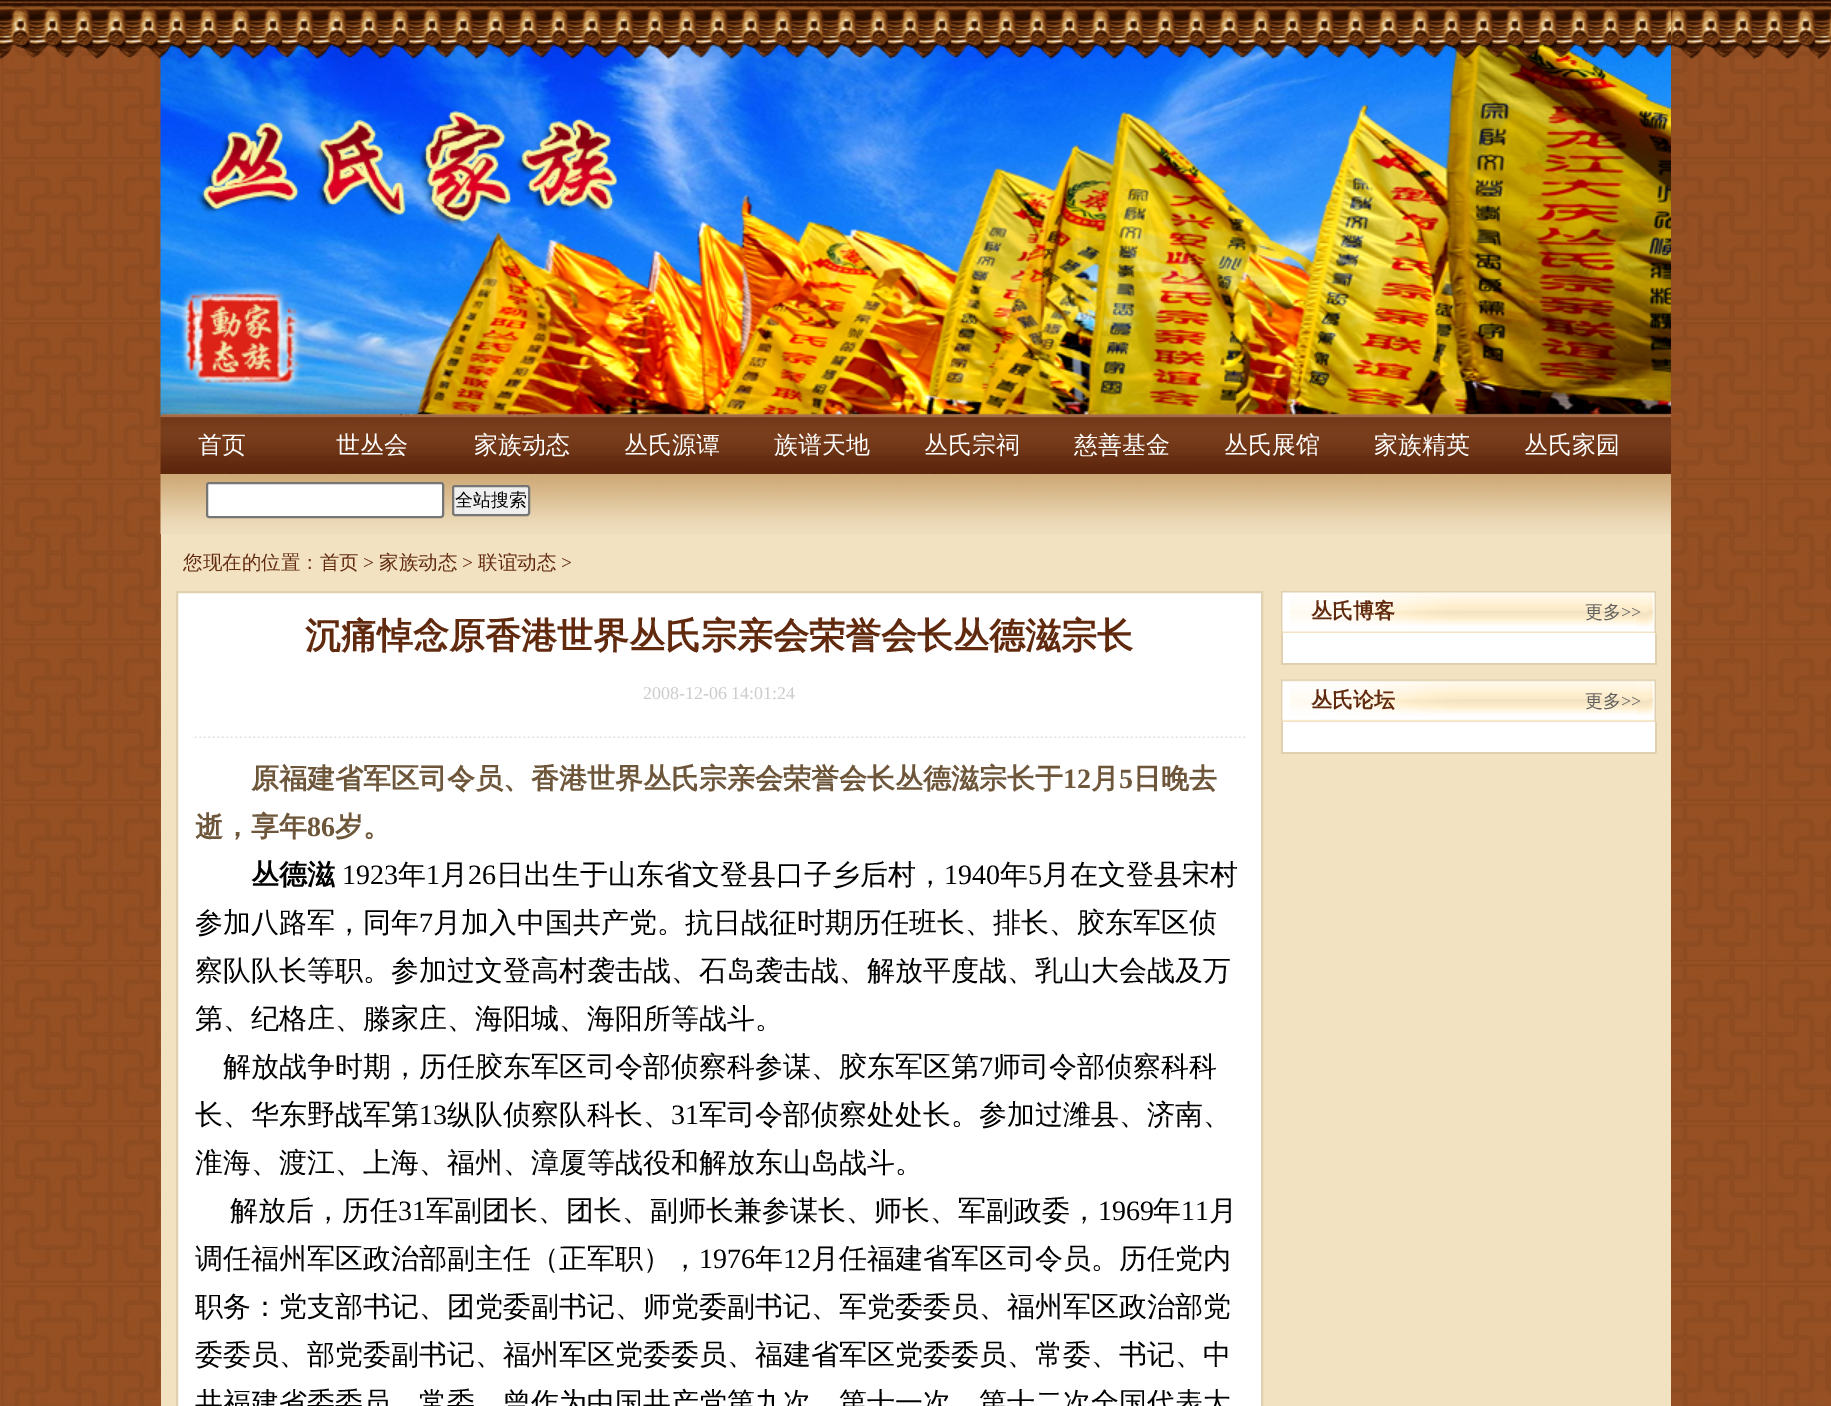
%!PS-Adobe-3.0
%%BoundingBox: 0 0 1831 1406
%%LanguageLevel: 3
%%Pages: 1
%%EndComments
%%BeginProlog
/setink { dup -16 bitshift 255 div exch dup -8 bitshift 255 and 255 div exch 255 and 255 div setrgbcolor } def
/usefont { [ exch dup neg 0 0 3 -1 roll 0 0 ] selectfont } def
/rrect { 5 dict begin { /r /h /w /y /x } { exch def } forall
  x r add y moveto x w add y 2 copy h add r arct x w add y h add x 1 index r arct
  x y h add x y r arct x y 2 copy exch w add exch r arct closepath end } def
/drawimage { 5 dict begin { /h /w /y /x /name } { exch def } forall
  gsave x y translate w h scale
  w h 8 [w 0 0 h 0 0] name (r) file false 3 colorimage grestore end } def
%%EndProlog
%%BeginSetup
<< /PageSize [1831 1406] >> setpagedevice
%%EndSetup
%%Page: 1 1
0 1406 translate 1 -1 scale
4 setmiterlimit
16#FFFFFF setink
0 0 1831 1406 rectfill
(img1.raw) 0 3 1831 1403 drawimage
(img2.raw) 0 0 1831 59 drawimage
(img3.raw) 160 1 1511 415 drawimage
(img4.raw) 160 415 1511 59 drawimage
/WenQuanYiZenHei-Medium 24 usefont
[
    [(首页) 198 453]
    [(世丛会) 336 453]
    [(家族动态) 474 453]
    [(丛氏源谭) 624 453]
    [(族谱天地) 774 453]
    [(丛氏宗祠) 924 453]
    [(慈善基金) 1074 453]
    [(丛氏展馆) 1224 453]
    [(家族精英) 1374 453]
    [(丛氏家园) 1524 453]
] { aload pop moveto show } forall
(img5.raw) 160 474 1511 60 drawimage
207 483 236 34 2 rrect gsave fill grestore
16#767676 setink
2 setlinewidth
stroke
16#EFEFEF setink
453 486 76 29 2 rrect gsave fill grestore
16#767676 setink
stroke
/WenQuanYiZenHei-Medium 18 usefont
16#000000 setink
455 506 moveto (全站搜索) show
16#F2E2C1 setink
161 534 1510 872 rectfill
/WenQuanYiZenHei-Medium 19.5 usefont
16#612A0F setink
183 569 moveto (您现在的位置：首页) show
/LiberationSerif-Regular 19.5 usefont
363 569 moveto (>) show
/WenQuanYiZenHei-Medium 19.5 usefont
379 569 moveto (家族动态) show
/LiberationSerif-Regular 19.5 usefont
462 569 moveto (>) show
/WenQuanYiZenHei-Medium 19.5 usefont
478 569 moveto (联谊动态) show
/LiberationSerif-Regular 19.5 usefont
561 569 moveto (>) show
16#FFFFFF setink
177 592 moveto 1262 592 lineto 1262 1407 lineto 177 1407 lineto closepath gsave fill grestore
16#E0D0AF setink
stroke
/WenQuanYiZenHei-Bold 36 usefont
16#612A0F setink
305 648 moveto (沉痛悼念原香港世界丛氏宗亲会荣誉会长丛德滋宗长) show
/LiberationSerif-Regular 18 usefont
16#CCCCCC setink
643 699 moveto (2008-12-06 14:01:24) show
(img6.raw) 192 736 1054 2 drawimage
/WenQuanYiZenHei-Bold 28 usefont
16#6D563A setink
251 788 moveto (原福建省军区司令员、香港世界丛氏宗亲会荣誉会长丛德滋宗长于) show
/LiberationSerif-Bold 28 usefont
1063 788 moveto (12) show
/WenQuanYiZenHei-Bold 28 usefont
1091 788 moveto (月) show
/LiberationSerif-Bold 28 usefont
1119 788 moveto (5) show
/WenQuanYiZenHei-Bold 28 usefont
1133 788 moveto (日晚去) show
195 836 moveto (逝，享年) show
/LiberationSerif-Bold 28 usefont
307 836 moveto (86) show
/WenQuanYiZenHei-Bold 28 usefont
335 836 moveto (岁。) show
16#000000 setink
251 884 moveto (丛德滋) show
/LiberationSerif-Regular 28 usefont
342 884 moveto (1923) show
/WenQuanYiZenHei-Medium 28 usefont
398 884 moveto (年) show
/LiberationSerif-Regular 28 usefont
426 884 moveto (1) show
/WenQuanYiZenHei-Medium 28 usefont
440 884 moveto (月) show
/LiberationSerif-Regular 28 usefont
468 884 moveto (26) show
/WenQuanYiZenHei-Medium 28 usefont
496 884 moveto (日出生于山东省文登县口子乡后村，) show
/LiberationSerif-Regular 28 usefont
944 884 moveto (1940) show
/WenQuanYiZenHei-Medium 28 usefont
1000 884 moveto (年) show
/LiberationSerif-Regular 28 usefont
1028 884 moveto (5) show
/WenQuanYiZenHei-Medium 28 usefont
1042 884 moveto (月在文登县宋村) show
195 932 moveto (参加八路军，同年) show
/LiberationSerif-Regular 28 usefont
419 932 moveto (7) show
/WenQuanYiZenHei-Medium 28 usefont
[
    [(月加入中国共产党。抗日战征时期历任班长、排长、胶东军区侦) 433 932]
    [(察队队长等职。参加过文登高村袭击战、石岛袭击战、解放平度战、乳山大会战及万) 195 980]
    [(第、纪格庄、滕家庄、海阳城、海阳所等战斗。) 195 1028]
    [(解放战争时期，历任胶东军区司令部侦察科参谋、胶东军区第) 223 1076]
] { aload pop moveto show } forall
/LiberationSerif-Regular 28 usefont
979 1076 moveto (7) show
/WenQuanYiZenHei-Medium 28 usefont
993 1076 moveto (师司令部侦察科科) show
195 1124 moveto (长、华东野战军第) show
/LiberationSerif-Regular 28 usefont
419 1124 moveto (13) show
/WenQuanYiZenHei-Medium 28 usefont
447 1124 moveto (纵队侦察队科长、) show
/LiberationSerif-Regular 28 usefont
671 1124 moveto (31) show
/WenQuanYiZenHei-Medium 28 usefont
[
    [(军司令部侦察处处长。参加过潍县、济南、) 699 1124]
    [(淮海、渡江、上海、福州、漳厦等战役和解放东山岛战斗。) 195 1172]
    [(解放后，历任) 230 1220]
] { aload pop moveto show } forall
/LiberationSerif-Regular 28 usefont
398 1220 moveto (31) show
/WenQuanYiZenHei-Medium 28 usefont
426 1220 moveto (军副团长、团长、副师长兼参谋长、师长、军副政委，) show
/LiberationSerif-Regular 28 usefont
1098 1220 moveto (1969) show
/WenQuanYiZenHei-Medium 28 usefont
1153 1220 moveto (年) show
/LiberationSerif-Regular 28 usefont
1181 1220 moveto (11) show
/WenQuanYiZenHei-Medium 28 usefont
1209 1220 moveto (月) show
195 1268 moveto (调任福州军区政治部副主任（正军职），) show
/LiberationSerif-Regular 28 usefont
699 1268 moveto (1976) show
/WenQuanYiZenHei-Medium 28 usefont
755 1268 moveto (年) show
/LiberationSerif-Regular 28 usefont
783 1268 moveto (12) show
/WenQuanYiZenHei-Medium 28 usefont
[
    [(月任福建省军区司令员。历任党内) 811 1268]
    [(职务：党支部书记、团党委副书记、师党委副书记、军党委委员、福州军区政治部党) 195 1316]
    [(委委员、部党委副书记、福州军区党委委员、福建省军区党委委员、常委、书记、中) 195 1364]
    [(共福建省委委员、常委。曾作为中国共产党第九次、第十一次、第十二次全国代表大) 195 1412]
] { aload pop moveto show } forall
(img7.raw) 1281 591 375 42 drawimage
/WenQuanYiZenHei-Bold 21 usefont
16#612A0F setink
1311 618 moveto (丛氏博客) show
/WenQuanYiZenHei-Medium 18 usefont
16#606060 setink
1585 618 moveto (更多) show
/LiberationSerif-Regular 18 usefont
1621 618 moveto (>>) show
[
    [1283 633 372 30 16#FFFFFF]
    [1655 633 2 32 16#E0D0AF]
    [1281 663 375 2 16#E0D0AF]
    [1281 633 2 32 16#E0D0AF]
] { aload pop setink rectfill } forall
(img8.raw) 1281 679 375 43 drawimage
/WenQuanYiZenHei-Bold 21 usefont
16#612A0F setink
1311 707 moveto (丛氏论坛) show
/WenQuanYiZenHei-Medium 18 usefont
16#606060 setink
1585 707 moveto (更多) show
/LiberationSerif-Regular 18 usefont
1621 707 moveto (>>) show
[
    [1283 722 372 30 16#FFFFFF]
    [1655 722 2 31 16#E0D0AF]
    [1281 752 375 2 16#E0D0AF]
    [1281 722 2 31 16#E0D0AF]
] { aload pop setink rectfill } forall
showpage
%%EOF
